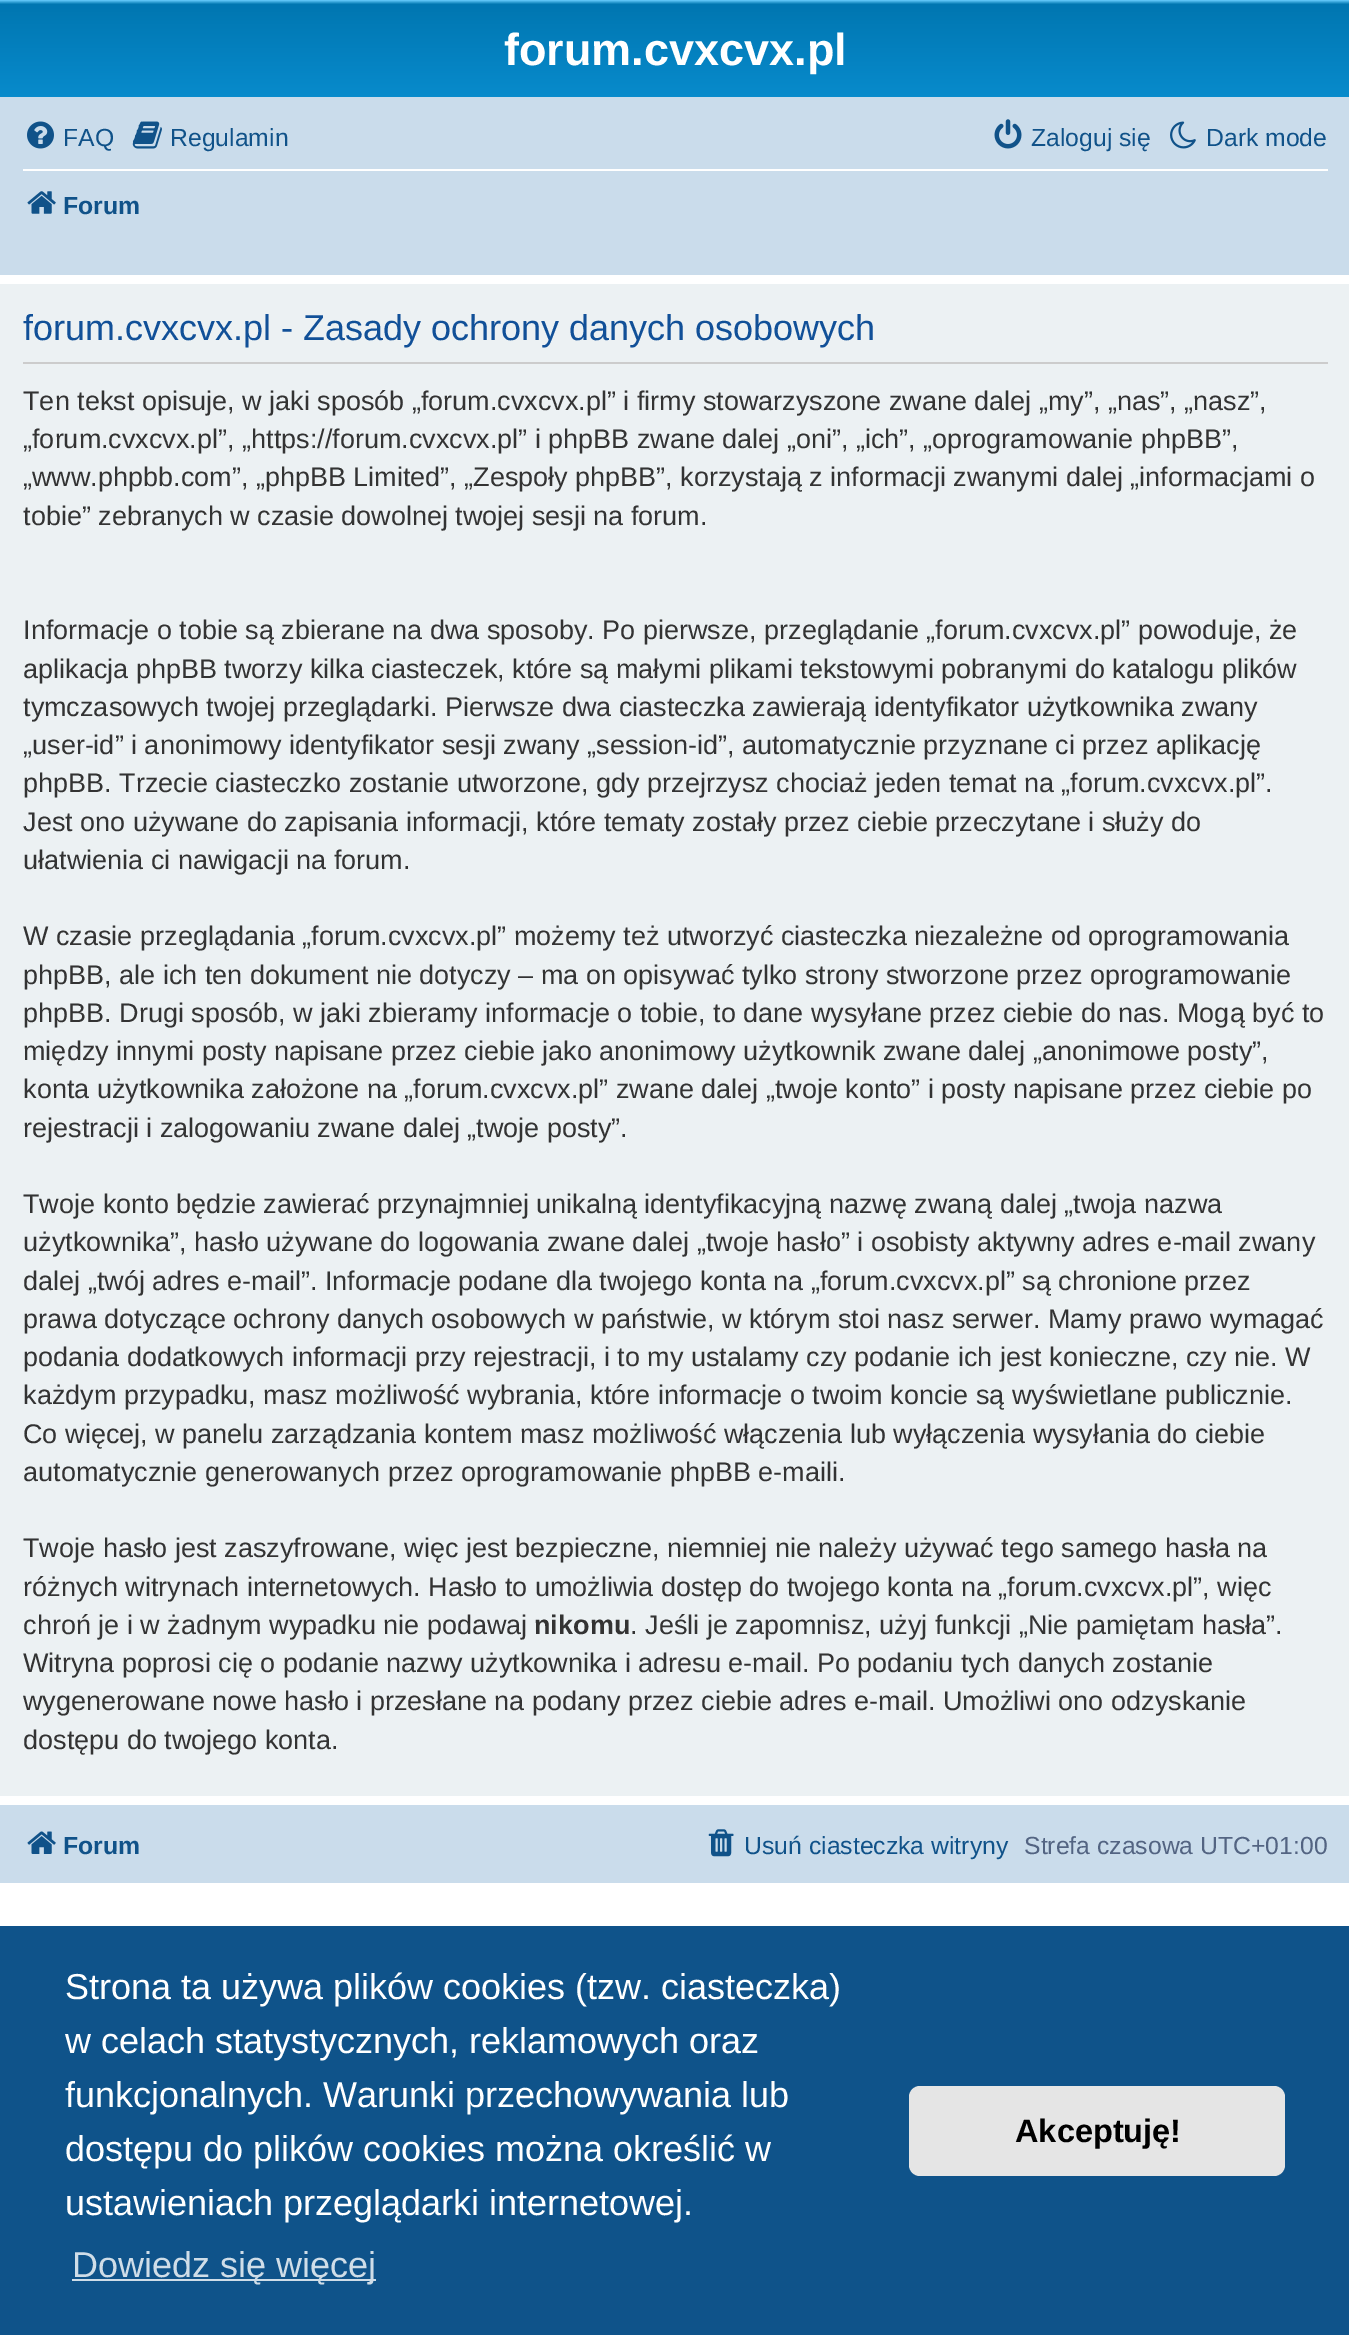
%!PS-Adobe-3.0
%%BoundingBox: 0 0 1349 2335
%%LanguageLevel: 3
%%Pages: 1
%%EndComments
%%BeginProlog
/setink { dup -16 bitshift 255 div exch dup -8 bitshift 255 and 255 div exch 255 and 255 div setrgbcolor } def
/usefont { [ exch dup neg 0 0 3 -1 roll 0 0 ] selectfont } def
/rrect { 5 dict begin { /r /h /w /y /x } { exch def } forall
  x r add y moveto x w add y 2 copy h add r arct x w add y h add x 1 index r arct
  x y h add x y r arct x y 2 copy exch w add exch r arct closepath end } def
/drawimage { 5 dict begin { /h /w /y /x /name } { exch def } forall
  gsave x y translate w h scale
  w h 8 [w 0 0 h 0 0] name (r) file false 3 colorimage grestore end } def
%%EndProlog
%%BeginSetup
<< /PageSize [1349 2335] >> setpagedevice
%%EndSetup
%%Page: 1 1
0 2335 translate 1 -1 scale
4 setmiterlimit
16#FFFFFF setink
0 0 1349 2335 rectfill
gsave 0 0 moveto 1349 0 lineto 1349 97 lineto 0 97 lineto closepath clip newpath
<< /ShadingType 2 /ColorSpace /DeviceRGB /Coords [675 0 675 207] /Extend [true true] /Function << /FunctionType 3 /Domain [0 1] /Functions [<< /FunctionType 2 /Domain [0 1] /C0 [0.416 0.808 1] /C1 [0 0.463 0.694] /N 1 >> << /FunctionType 2 /Domain [0 1] /C0 [0 0.463 0.694] /C1 [0.071 0.639 0.922] /N 1 >>] /Bounds [0.02] /Encode [0 1 0 1] >> >> shfill grestore
/LiberationSans-Bold 45 usefont
504 65 moveto (forum.cvxcvx.pl) show
16#CADCEB setink
0 97 1349 178 rectfill
(img1.raw) 27 121 27 28 drawimage
/LiberationSans-Regular 24.75 usefont
16#105289 setink
63 146 moveto (FAQ) show
(img2.raw) 132 121 30 28 drawimage
170 146 moveto (Regulamin) show
(img3.raw) 994 119 28 30 drawimage
1031 146 moveto (Zaloguj się) show
(img4.raw) 1170 121 26 28 drawimage
1206 146 moveto (Dark mode) show
16#FFFFFF setink
23 169 1305 2 rectfill
(img5.raw) 27 191 29 23 drawimage
/LiberationSans-Bold 24.75 usefont
16#105289 setink
63 214 moveto (Forum) show
16#ECF1F3 setink
0 284 1349 1512 rectfill
16#CCCCCC setink
23 362 1305 2 rectfill
/LiberationSans-Regular 36 usefont
16#115098 setink
23 340 moveto (forum.cvxcvx.pl - Zasady ochrony danych osobowych) show
/LiberationSans-Regular 27 usefont
16#333333 setink
[
    [(Ten tekst opisuje, w jaki sposób „forum.cvxcvx.pl” i firmy stowarzyszone zwane dalej „my”, „nas”, „nasz”,) 23 410]
    [(„forum.cvxcvx.pl”, „https://forum.cvxcvx.pl” i phpBB zwane dalej „oni”, „ich”, „oprogramowanie phpBB”,) 23 448]
    [(„www.phpbb.com”, „phpBB Limited”, „Zespoły phpBB”, korzystają z informacji zwanymi dalej „informacjami o) 23 486]
    [(tobie” zebranych w czasie dowolnej twojej sesji na forum.) 23 525]
    [(Informacje o tobie są zbierane na dwa sposoby. Po pierwsze, przeglądanie „forum.cvxcvx.pl” powoduje, że) 23 639]
    [(aplikacja phpBB tworzy kilka ciasteczek, które są małymi plikami tekstowymi pobranymi do katalogu plików) 23 678]
    [(tymczasowych twojej przeglądarki. Pierwsze dwa ciasteczka zawierają identyfikator użytkownika zwany) 23 716]
    [(„user-id” i anonimowy identyfikator sesji zwany „session-id”, automatycznie przyznane ci przez aplikację) 23 754]
    [(phpBB. Trzecie ciasteczko zostanie utworzone, gdy przejrzysz chociaż jeden temat na „forum.cvxcvx.pl”.) 23 792]
    [(Jest ono używane do zapisania informacji, które tematy zostały przez ciebie przeczytane i służy do) 23 831]
    [(ułatwienia ci nawigacji na forum.) 23 869]
    [(W czasie przeglądania „forum.cvxcvx.pl” możemy też utworzyć ciasteczka niezależne od oprogramowania) 23 945]
    [(phpBB, ale ich ten dokument nie dotyczy – ma on opisywać tylko strony stworzone przez oprogramowanie) 23 984]
    [(phpBB. Drugi sposób, w jaki zbieramy informacje o tobie, to dane wysyłane przez ciebie do nas. Mogą być to) 23 1022]
    [(między innymi posty napisane przez ciebie jako anonimowy użytkownik zwane dalej „anonimowe posty”,) 23 1060]
    [(konta użytkownika założone na „forum.cvxcvx.pl” zwane dalej „twoje konto” i posty napisane przez ciebie po) 23 1098]
    [(rejestracji i zalogowaniu zwane dalej „twoje posty”.) 23 1137]
    [(Twoje konto będzie zawierać przynajmniej unikalną identyfikacyjną nazwę zwaną dalej „twoja nazwa) 23 1213]
    [(użytkownika”, hasło używane do logowania zwane dalej „twoje hasło” i osobisty aktywny adres e-mail zwany) 23 1251]
    [(dalej „twój adres e-mail”. Informacje podane dla twojego konta na „forum.cvxcvx.pl” są chronione przez) 23 1290]
    [(prawa dotyczące ochrony danych osobowych w państwie, w którym stoi nasz serwer. Mamy prawo wymagać) 23 1328]
    [(podania dodatkowych informacji przy rejestracji, i to my ustalamy czy podanie ich jest konieczne, czy nie. W) 23 1366]
    [(każdym przypadku, masz możliwość wybrania, które informacje o twoim koncie są wyświetlane publicznie.) 23 1404]
    [(Co więcej, w panelu zarządzania kontem masz możliwość włączenia lub wyłączenia wysyłania do ciebie) 23 1443]
    [(automatycznie generowanych przez oprogramowanie phpBB e-maili.) 23 1481]
    [(Twoje hasło jest zaszyfrowane, więc jest bezpieczne, niemniej nie należy używać tego samego hasła na) 23 1557]
    [(różnych witrynach internetowych. Hasło to umożliwia dostęp do twojego konta na „forum.cvxcvx.pl”, więc) 23 1596]
    [(chroń je i w żadnym wypadku nie podawaj) 23 1634]
] { aload pop moveto show } forall
/LiberationSans-Bold 27 usefont
534 1634 moveto (nikomu) show
/LiberationSans-Regular 27 usefont
630 1634 moveto (. Jeśli je zapomnisz, użyj funkcji „Nie pamiętam hasła”.) show
23 1672 moveto (Witryna poprosi cię o podanie nazwy użytkownika i adresu e-mail. Po podaniu tych danych zostanie) show
gsave
23 295 1305 1489 rectclip
23 1710 moveto (wygenerowane nowe hasło i przesłane na podany przez ciebie adres e-mail. Umożliwi ono odzyskanie) show
grestore
23 1749 moveto (dostępu do twojego konta.) show
16#CADCEB setink
0 1805 1349 78 rectfill
(img6.raw) 27 1831 29 23 drawimage
/LiberationSans-Bold 24.75 usefont
16#105289 setink
63 1854 moveto (Forum) show
(img7.raw) 708 1829 26 28 drawimage
/LiberationSans-Regular 24.75 usefont
744 1854 moveto (Usuń ciasteczka witryny) show
16#536482 setink
1024 1854 moveto (Strefa czasowa UTC+01:00) show
16#0F538A setink
0 1926 1349 409 rectfill
/LiberationSans-Regular 36 usefont
16#FFFFFF setink
[
    [(Strona ta używa plików cookies \(tzw. ciasteczka\)) 65 1999]
    [(w celach statystycznych, reklamowych oraz) 65 2053]
    [(funkcjonalnych. Warunki przechowywania lub) 65 2107]
    [(dostępu do plików cookies można określić w) 65 2161]
    [(ustawieniach przeglądarki internetowej.) 65 2215]
] { aload pop moveto show } forall
16#CFDDE8 setink
72 2279 304 2 rectfill
72 2277 moveto (Dowiedz się więcej) show
16#E5E5E5 setink
909 2086 376 90 11 rrect fill
/LiberationSans-Bold 32.5 usefont
16#000000 setink
1015 2142 moveto (Akceptuję!) show
showpage
%%EOF
